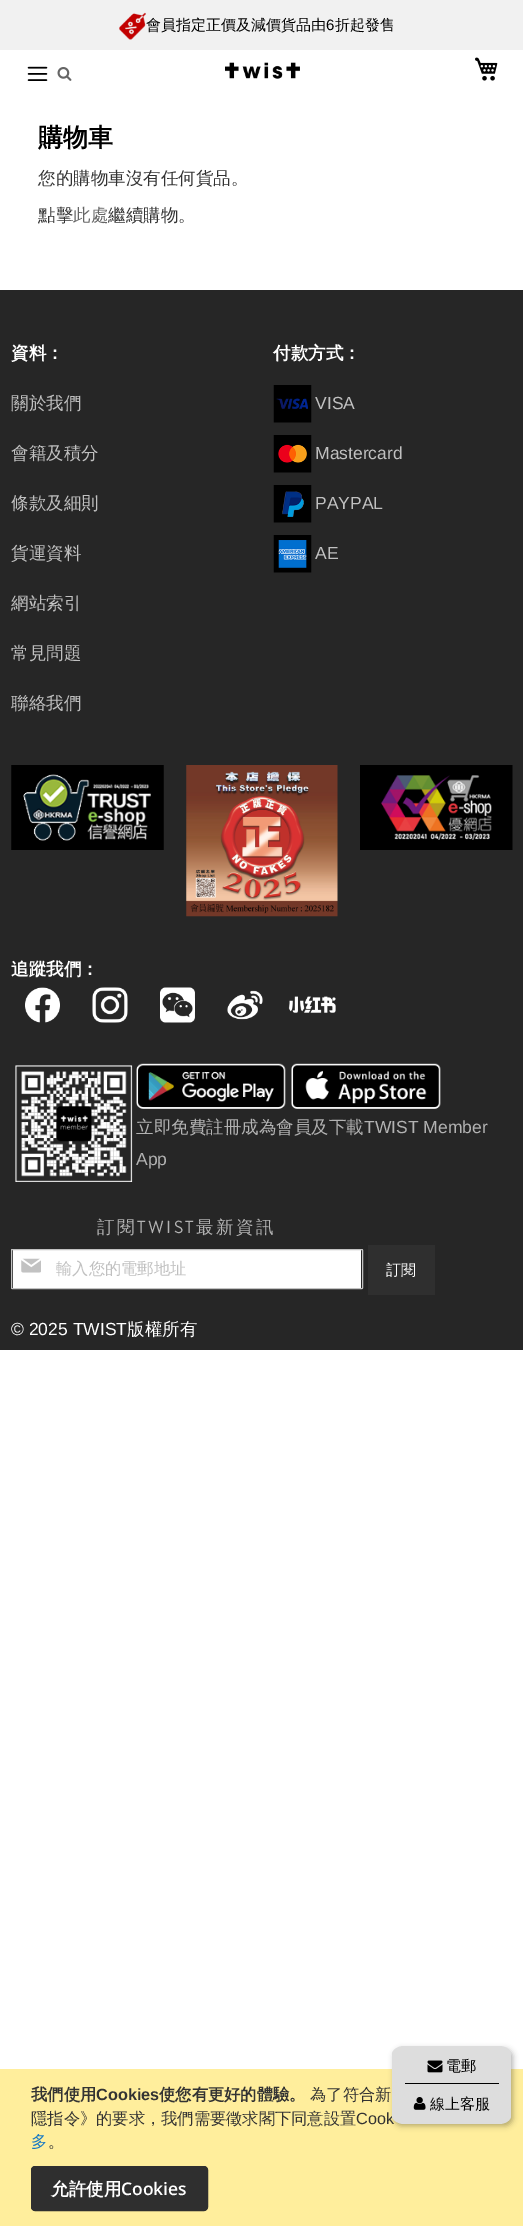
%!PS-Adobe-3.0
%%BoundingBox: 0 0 523 2226
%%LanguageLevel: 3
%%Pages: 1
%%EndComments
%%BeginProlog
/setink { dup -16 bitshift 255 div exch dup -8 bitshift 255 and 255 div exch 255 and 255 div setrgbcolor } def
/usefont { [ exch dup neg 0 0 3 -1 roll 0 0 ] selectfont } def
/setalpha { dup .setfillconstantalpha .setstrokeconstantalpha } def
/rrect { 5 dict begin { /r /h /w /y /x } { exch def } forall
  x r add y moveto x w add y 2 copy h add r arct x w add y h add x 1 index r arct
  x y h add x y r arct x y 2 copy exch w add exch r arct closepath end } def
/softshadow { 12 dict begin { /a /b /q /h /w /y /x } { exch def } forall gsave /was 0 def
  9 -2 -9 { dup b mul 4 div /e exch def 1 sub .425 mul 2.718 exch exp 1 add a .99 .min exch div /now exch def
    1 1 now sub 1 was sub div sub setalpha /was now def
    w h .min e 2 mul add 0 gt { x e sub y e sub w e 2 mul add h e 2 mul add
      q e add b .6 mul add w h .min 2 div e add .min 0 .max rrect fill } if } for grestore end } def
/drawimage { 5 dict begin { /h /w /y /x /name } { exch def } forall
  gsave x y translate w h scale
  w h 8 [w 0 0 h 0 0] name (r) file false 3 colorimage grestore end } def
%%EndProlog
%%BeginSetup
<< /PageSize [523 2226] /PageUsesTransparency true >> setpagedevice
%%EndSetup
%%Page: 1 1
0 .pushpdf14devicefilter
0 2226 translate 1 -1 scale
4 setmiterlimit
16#FFFFFF setink
0 0 523 2226 rectfill
16#F1F1F1 setink
0 0 523 50 rectfill
(img1.raw) 119 12 27 28 drawimage
/WenQuanYiZenHei-Medium 15 usefont
16#000000 setink
146 30 moveto (會員指定正價及減價貨品由) show
/LiberationSans-Regular 15 usefont
326 30 moveto (6) show
/WenQuanYiZenHei-Medium 15 usefont
335 30 moveto (折起發售) show
(img2.raw) 27 66 21 15 drawimage
(img3.raw) 225 62 75 17 drawimage
(img4.raw) 475 57 23 24 drawimage
(img5.raw) 57 67 15 14 drawimage
/WenQuanYiZenHei-Bold 25 usefont
38 146 moveto (購物車) show
/WenQuanYiZenHei-Medium 17.5 usefont
16#333333 setink
38 184 moveto (您的購物車沒有任何貨品。) show
38 221 moveto (點擊) show
16#666666 setink
73 221 moveto (此處) show
16#333333 setink
108 221 moveto (繼續購物。) show
16#262626 setink
0 290 523 1060 rectfill
/WenQuanYiZenHei-Bold 17.5 usefont
16#FFFFFF setink
11 359 moveto (資料：) show
/WenQuanYiZenHei-Medium 17.5 usefont
16#C0C0C0 setink
[
    [(關於我們) 11 409]
    [(會籍及積分) 11 459]
    [(條款及細則) 11 509]
    [(貨運資料) 11 559]
    [(網站索引) 11 609]
    [(常見問題) 11 659]
    [(聯絡我們) 11 709]
] { aload pop moveto show } forall
/WenQuanYiZenHei-Bold 17.5 usefont
16#FFFFFF setink
273 359 moveto (付款方式：) show
(img6.raw) 273 385 39 38 drawimage
/LiberationSans-Regular 17.5 usefont
16#C0C0C0 setink
315 409 moveto (VISA) show
(img7.raw) 273 435 39 38 drawimage
315 459 moveto (Mastercard) show
(img8.raw) 273 485 39 38 drawimage
315 509 moveto (PAYPAL) show
(img9.raw) 273 535 39 38 drawimage
315 559 moveto (AE) show
(img10.raw) 11 765 153 85 drawimage
(img11.raw) 186 765 152 152 drawimage
(img12.raw) 360 765 153 85 drawimage
/WenQuanYiZenHei-Bold 17.5 usefont
16#FFFFFF setink
11 975 moveto (追蹤我們：) show
(img13.raw) 25 987 35 36 drawimage
(img14.raw) 92 987 36 36 drawimage
(img15.raw) 160 987 35 36 drawimage
(img16.raw) 227 990 36 30 drawimage
(img17.raw) 288 996 48 17 drawimage
(img18.raw) 15 1065 118 117 drawimage
(img19.raw) 136 1063 150 46 drawimage
(img20.raw) 291 1063 150 46 drawimage
/WenQuanYiZenHei-Medium 17.5 usefont
16#B2B2B2 setink
136 1133 moveto (立即免費註冊成為會員及下載) show
/LiberationSans-Regular 17.5 usefont
364 1133 moveto (TWIST Member) show
136 1165 moveto (App) show
/WenQuanYiZenHei-Medium 17.5 usefont
97 1233 moveto 2.5 0 (訂閱) ashow
/BrandonGrotesque-Regular 17.5 usefont
137 1233 moveto 2.5 0 (TWIST) ashow
/WenQuanYiZenHei-Medium 17.5 usefont
196 1233 moveto 2.5 0 (最新資訊) ashow
16#FFFFFF setink
13 1250 348 38 rectfill
16#C2C2C2 setink
11.5 1249.5 351 39 0.5 rrect stroke
(img21.raw) 21 1258 20 15 drawimage
/WenQuanYiZenHei-Medium 16.25 usefont
16#C0C0C0 setink
56 1274 moveto (輸入您的電郵地址) show
16#2F2F2F setink
368 1245 67 50 rectfill
/WenQuanYiZenHei-Medium 15 usefont
16#FFFFFF setink
386 1275 moveto (訂閱) show
/LiberationSans-Regular 17.5 usefont
11 1335 moveto (© 2025 TWIST) show
/WenQuanYiZenHei-Medium 17.5 usefont
127 1335 moveto (版權所有) show
16#FFEE9C setink
0 2069 523 157 rectfill
16#000000 setink
394 2049 119 77 8 3 0.3 softshadow
/LiberationSans-Regular 16.25 usefont
16#333333 setink
356 2124 moveto (Cook) show
16#DDDDDD setink
404 2046 moveto 499 2046 lineto 506 2046 511 2050 511 2054 curveto 511 2116 lineto 511 2120 506 2124 499 2124 curveto 404 2124 lineto 398 2124 392 2120 392 2116 curveto 392 2054 lineto 392 2050 398 2046 404 2046 curveto closepath fill
16#000000 setink
405 2083 94 1 rectfill
(img22.raw) 427 2060 16 13 drawimage
/WenQuanYiZenHei-Medium 15 usefont
446 2071 moveto (電郵) show
(img23.raw) 413 2097 13 13 drawimage
430 2109 moveto (線上客服) show
/WenQuanYiZenHei-Bold 16.25 usefont
16#333333 setink
31 2100 moveto (我們使用) show
/LiberationSans-Bold 16.25 usefont
96 2100 moveto (Cookies) show
/WenQuanYiZenHei-Bold 16.25 usefont
159 2100 moveto (使您有更好的體驗。) show
/WenQuanYiZenHei-Medium 16.25 usefont
310 2100 moveto (為了符合新) show
31 2124 moveto (隱指令》的要求，我們需要徵求閣下同意設置) show
16#1979C3 setink
31 2147 moveto (多) show
16#333333 setink
48 2147 moveto (。) show
16#2F2F2F setink
31.5 2166.5 176 44 3.5 rrect gsave fill grestore
stroke
/WenQuanYiZenHei-Bold 17.5 usefont
16#FFFFFF setink
51 2195 moveto (允許使用) show
/OpenSans-SemiBold 17.5 usefont
121 2195 moveto (Cookies) show
.poppdf14devicefilter showpage
%%EOF
